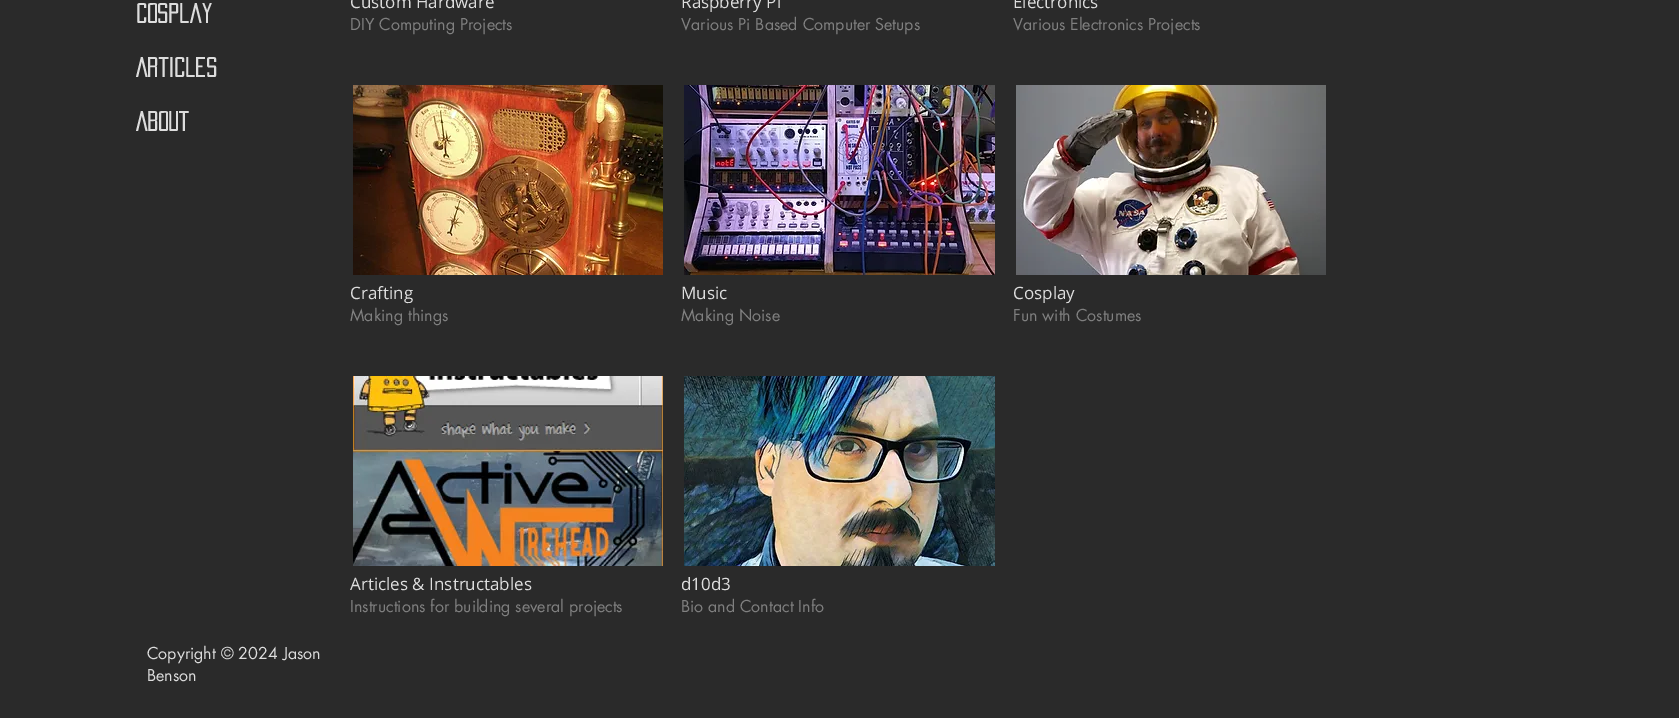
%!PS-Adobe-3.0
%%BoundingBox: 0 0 1679 718
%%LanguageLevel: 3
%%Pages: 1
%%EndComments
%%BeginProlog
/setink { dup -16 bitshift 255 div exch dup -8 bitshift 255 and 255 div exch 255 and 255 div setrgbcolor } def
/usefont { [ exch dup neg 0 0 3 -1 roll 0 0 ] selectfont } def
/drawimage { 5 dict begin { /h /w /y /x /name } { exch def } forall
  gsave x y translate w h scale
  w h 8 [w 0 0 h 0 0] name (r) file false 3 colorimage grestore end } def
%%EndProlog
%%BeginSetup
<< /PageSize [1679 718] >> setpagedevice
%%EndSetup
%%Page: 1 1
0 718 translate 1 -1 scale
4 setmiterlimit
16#2A2A2A setink
0 0 1679 718 rectfill
/OpenSans-Regular 17 usefont
16#DDDDDD setink
350 8 moveto (Custom Hardware) show
/futura-Regular 16 usefont
16#808080 setink
350 30 moveto (DIY Computing Projects) show
/OpenSans-Regular 17 usefont
16#DDDDDD setink
681 8 moveto (Raspberry Pi) show
/futura-Regular 16 usefont
16#808080 setink
681 30 moveto (Various Pi Based Computer Setups) show
/OpenSans-Regular 17 usefont
16#DDDDDD setink
1013 8 moveto (Electronics) show
/futura-Regular 16 usefont
16#808080 setink
1013 30 moveto (Various Electronics Projects) show
(img1.raw) 353 85 310 190 drawimage
/OpenSans-Regular 17 usefont
16#DDDDDD setink
350 299 moveto (Crafting) show
/futura-Regular 16 usefont
16#808080 setink
350 321 moveto (Making things) show
(img2.raw) 684 85 311 190 drawimage
/OpenSans-Regular 17 usefont
16#DDDDDD setink
681 299 moveto (Music) show
/futura-Regular 16 usefont
16#808080 setink
681 321 moveto (Making Noise) show
(img3.raw) 1016 85 310 190 drawimage
/OpenSans-Regular 17 usefont
16#DDDDDD setink
1013 299 moveto (Cosplay) show
/futura-Regular 16 usefont
16#808080 setink
1013 321 moveto (Fun with Costumes) show
(img4.raw) 353 376 310 190 drawimage
/OpenSans-Regular 17 usefont
16#DDDDDD setink
350 590 moveto (Articles & Instructables) show
/futura-Regular 16 usefont
16#808080 setink
350 612 moveto (Instructions for building several projects) show
(img5.raw) 684 376 311 190 drawimage
/OpenSans-Regular 17 usefont
16#DDDDDD setink
681 590 moveto (d10d3) show
/futura-Regular 16 usefont
16#808080 setink
681 612 moveto (Bio and Contact Info) show
16#DDDDDD setink
147 659 moveto (Copyright © 2024 Jason) show
147 681 moveto (Benson) show
/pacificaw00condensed-Bold 24 usefont
[
    [(Cosplay) 136 23]
    [(Articles) 136 77]
    [(ABOUT) 136 131]
] { aload pop moveto show } forall
showpage
%%EOF
